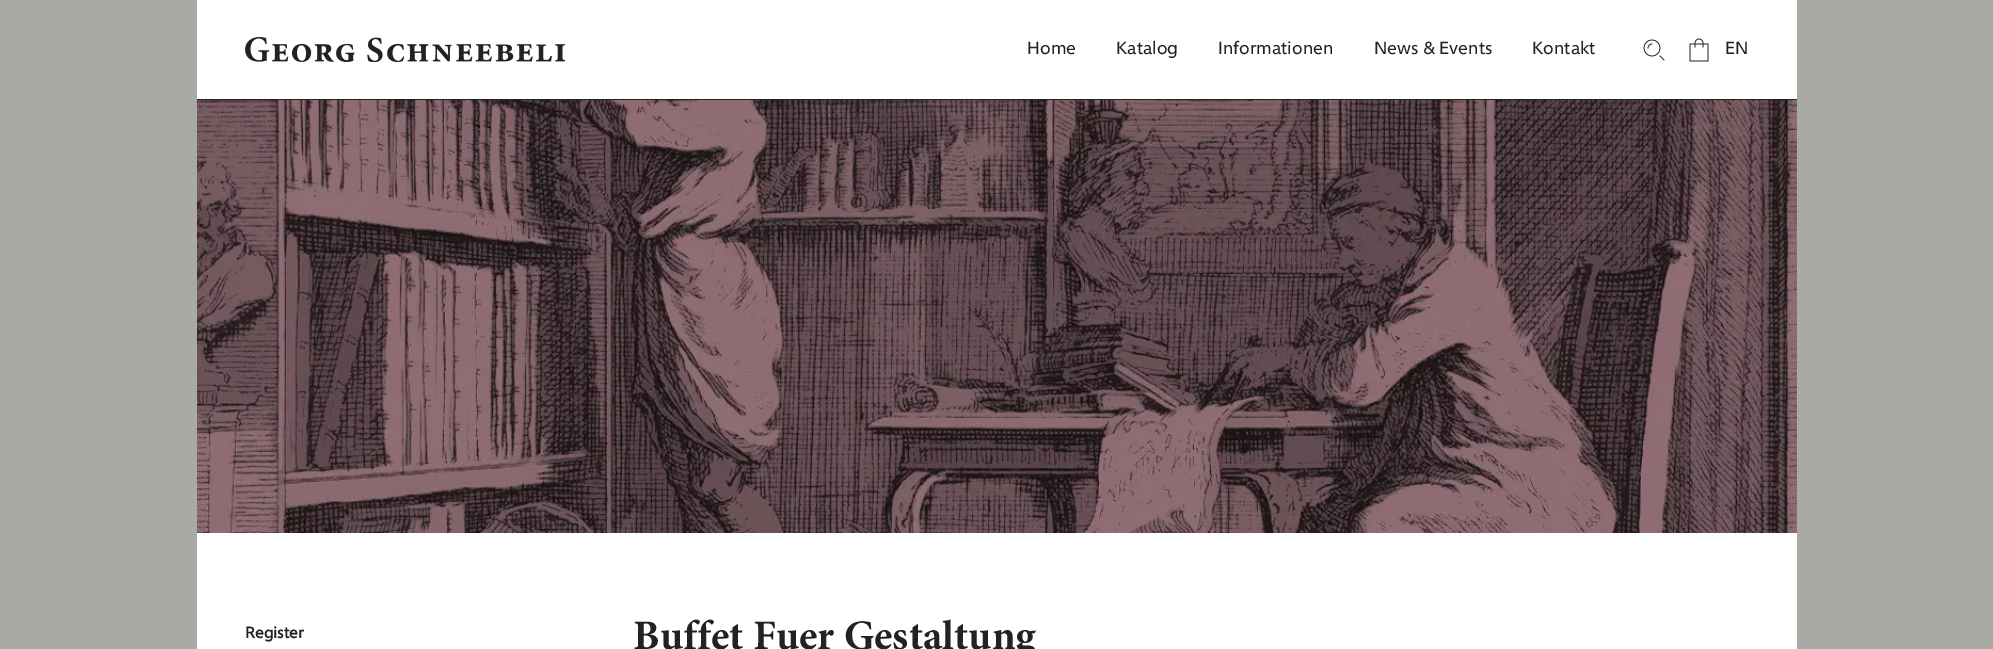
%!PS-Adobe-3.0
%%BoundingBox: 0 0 1993 649
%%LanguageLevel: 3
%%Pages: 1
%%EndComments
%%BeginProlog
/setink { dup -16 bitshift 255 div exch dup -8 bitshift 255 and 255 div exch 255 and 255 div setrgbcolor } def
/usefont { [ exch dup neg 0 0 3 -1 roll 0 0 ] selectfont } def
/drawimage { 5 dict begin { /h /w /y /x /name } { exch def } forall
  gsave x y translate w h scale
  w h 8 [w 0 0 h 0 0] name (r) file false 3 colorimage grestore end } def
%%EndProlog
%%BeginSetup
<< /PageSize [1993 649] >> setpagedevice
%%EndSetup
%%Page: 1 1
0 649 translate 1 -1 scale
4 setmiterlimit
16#A9A9A5 setink
0 0 1993 649 rectfill
16#FFFFFF setink
197 0 1600 99 rectfill
16#222222 setink
197 99 1600 1 rectfill
(img1.raw) 245 37 320 25 drawimage
/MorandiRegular-Regular 18 usefont
[
    [(Home) 1027 54]
    [(Katalog) 1116 54]
    [(Informationen) 1218 54]
    [(News & Events) 1374 54]
    [(Kontakt) 1532 54]
] { aload pop moveto show } forall
(img2.raw) 1643 39 22 22 drawimage
(img3.raw) 1689 38 20 24 drawimage
1725 54 moveto (EN) show
16#FFFFFF setink
197 533 1600 116 rectfill
(img4.raw) 197 100 1600 433 drawimage
/MorandiRegular-Bold 16 usefont
16#222222 setink
245 638 moveto (Register) show
/Minion-Bold 42 usefont
633 649 moveto (Buffet Fuer Gestaltung) show
showpage
%%EOF
